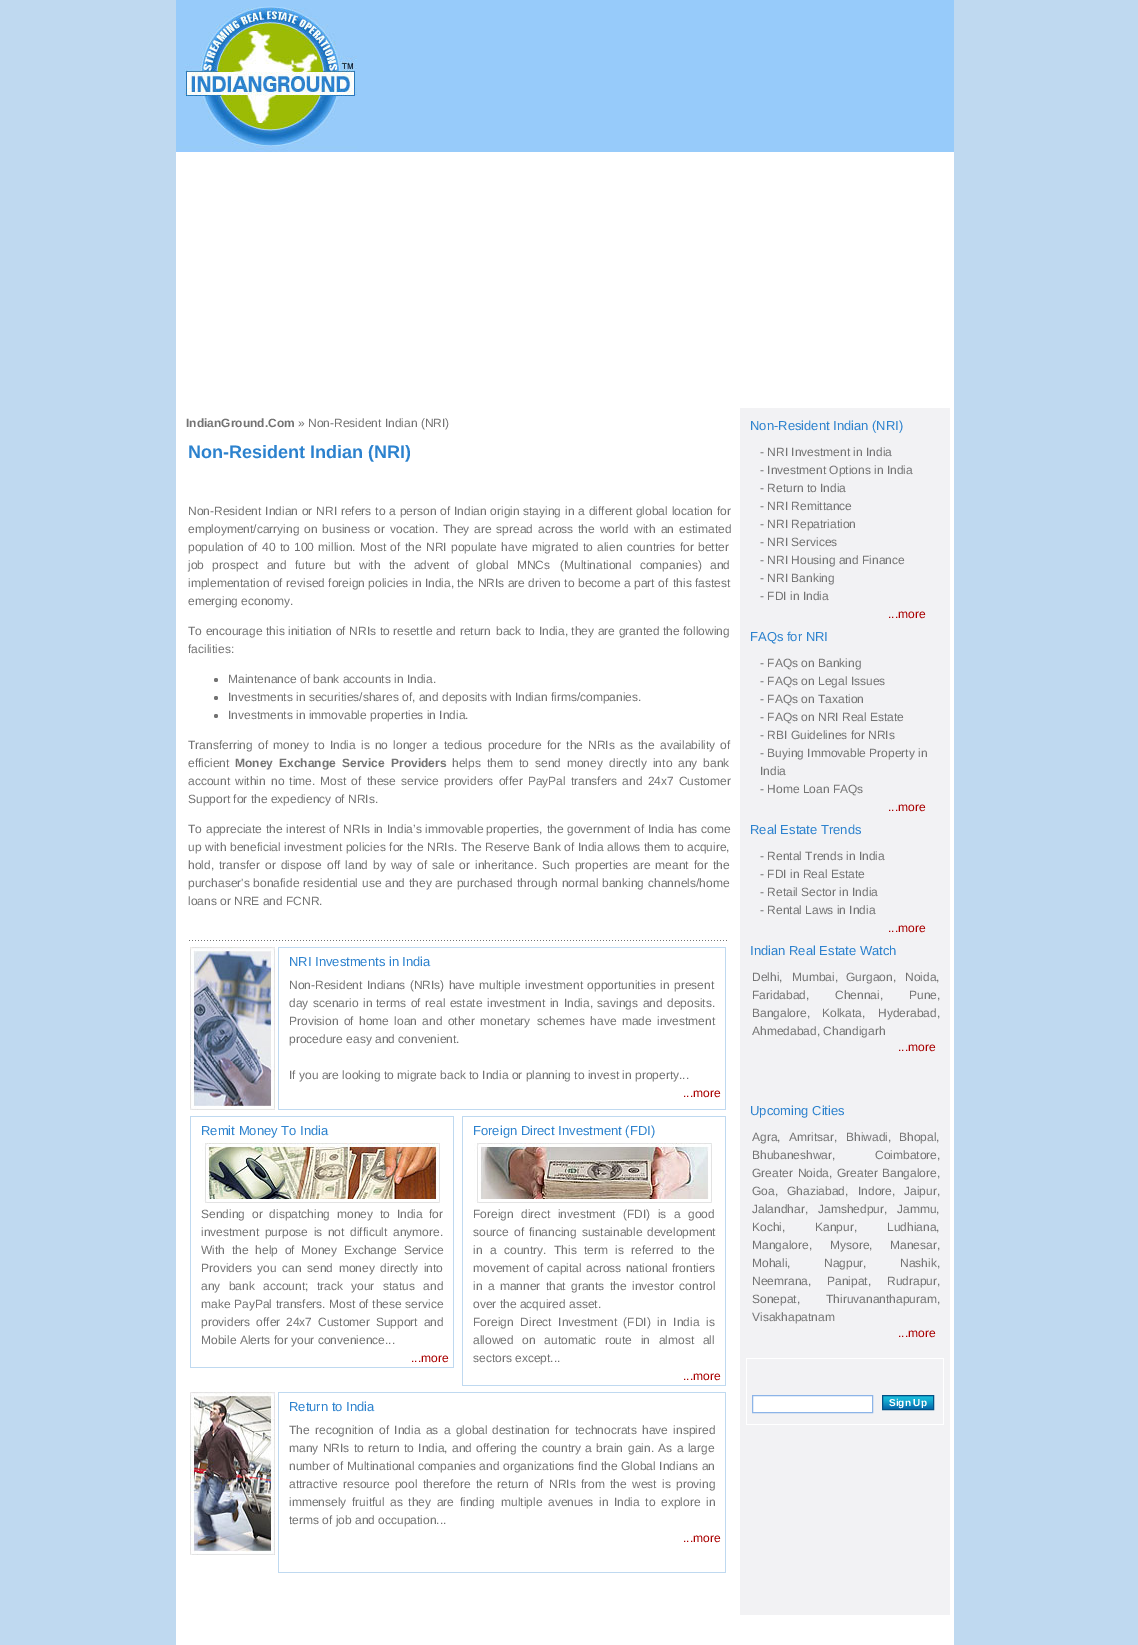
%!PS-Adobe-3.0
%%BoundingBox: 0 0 1138 1645
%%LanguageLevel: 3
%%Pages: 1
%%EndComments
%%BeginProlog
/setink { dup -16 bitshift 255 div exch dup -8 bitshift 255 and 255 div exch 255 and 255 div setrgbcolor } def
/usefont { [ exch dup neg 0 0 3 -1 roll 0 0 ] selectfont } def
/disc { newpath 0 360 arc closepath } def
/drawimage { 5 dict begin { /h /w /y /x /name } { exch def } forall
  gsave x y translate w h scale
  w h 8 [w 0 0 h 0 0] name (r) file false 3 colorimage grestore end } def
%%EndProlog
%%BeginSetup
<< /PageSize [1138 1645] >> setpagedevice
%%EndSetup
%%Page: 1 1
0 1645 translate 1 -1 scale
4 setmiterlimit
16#BFD9F0 setink
0 0 1138 1645 rectfill
16#FFFFFF setink
176 152 778 1493 rectfill
16#97CBFA setink
176 0 778 152 rectfill
(img1.raw) 176 6 181 146 drawimage
/LiberationSans-Bold 12 usefont
16#737373 setink
186 427 moveto (IndianGround.Com) show
/LiberationSans-Regular 12 usefont
298 427 moveto (» Non-Resident Indian \(NRI\)) show
/LiberationSans-Bold 18 usefont
16#2C82CE setink
188 458 moveto (Non-Resident Indian \(NRI\)) show
/LiberationSans-Regular 12 usefont
16#737373 setink
188 515 moveto 0.5 0 32 (Non-Resident Indian or NRI refers to a person of Indian origin) widthshow
523 515 moveto 0.5 0 32 (staying in a different global location for) widthshow
188 533 moveto (employment/carrying) show
304 533 moveto 1.5 0 32 (on business or vocation. They are spread across the world) widthshow
634 533 moveto 2 0 32 (with an estimated) widthshow
188 551 moveto 1 0 32 (population of 40 to 100 million. Most of) widthshow
405 551 moveto 1 0 32 (the NRI populate have migrated to alien countries for better) widthshow
188 569 moveto 5 0 32 (job prospect and future but with the advent of global MNCs) widthshow
560 569 moveto 5 0 32 (\(Multinational companies\) and) widthshow
188 587 moveto 0.1 0 32 (implementation of revised foreign policies in India, the NRIs are driven to become a part of) widthshow
673 587 moveto (this fastest) show
188 605 moveto (emerging economy.) show
188 635 moveto 0.25 0 32 (To encourage this initiation of NRIs to resettle and return) widthshow
496 635 moveto 0.25 0 32 (back to India, they are granted the following) widthshow
188 653 moveto (facilities:) show
216 680 2 disc fill
228 683 moveto (Maintenance of bank accounts in India.) show
216 698 2 disc fill
228 701 moveto (Investments in securities/shares of, and deposits with Indian firms/companies.) show
216 716 2 disc fill
228 719 moveto (Investments in immovable properties in India.) show
188 749 moveto 1.9 0 32 (Transferring of money to India is no longer a tedious procedure) widthshow
547 749 moveto 1.9 0 32 (for the NRIs as the availability of) widthshow
188 767 moveto (efficient) show
/LiberationSans-Bold 12 usefont
235 767 moveto (Money) show
279 767 moveto 3 0 32 (Exchange Service Providers) widthshow
/LiberationSans-Regular 12 usefont
452 767 moveto 2.5 0 32 (helps them to send money) widthshow
609 767 moveto 2.5 0 32 (directly into any bank) widthshow
188 785 moveto 1.75 0 32 (account within no time. Most of these) widthshow
401 785 moveto 1.75 0 32 (service providers offer PayPal transfers and 24x7 Customer) widthshow
188 803 moveto (Support for the expediency of NRIs.) show
188 833 moveto 0.5 0 32 (To appreciate the interest of NRIs in India’s immovable) widthshow
486 833 moveto 0.5 0 32 (properties, the government of India has come) widthshow
188 851 moveto 0.25 0 32 (up with beneficial investment policies for the NRIs. The Reserve Bank of India) widthshow
607 851 moveto (allows them to acquire,) show
188 869 moveto 1.75 0 32 (hold, transfer or dispose off land) widthshow
373 869 moveto 1.75 0 32 (by way of sale or inheritance. Such properties are meant for) widthshow
713 869 moveto (the) show
188 887 moveto 0.5 0 32 (purchaser's bonafide residential use and they are purchased) widthshow
517 887 moveto 0.5 0 32 (through normal banking channels/home) widthshow
188 905 moveto (loans or NRE and FCNR.) show
(img2.raw) 189 940 538 1 drawimage
(img3.raw) 190 947 85 163 drawimage
[
    [278 947 448 1 16#BFD9F0]
    [725 947 1 163 16#BFD9F0]
    [278 1109 448 1 16#BFD9F0]
    [278 947 1 163 16#BFD9F0]
] { aload pop setink rectfill } forall
/LiberationSans-Regular 13 usefont
16#2C82CE setink
289 966 moveto (NRI Investments in India) show
/LiberationSans-Regular 12 usefont
16#737373 setink
289 989 moveto 1 0 32 (Non-Resident Indians \(NRIs\) have multiple) widthshow
525 989 moveto 1 0 32 (investment opportunities in present) widthshow
289 1007 moveto 1.25 0 32 (day scenario in) widthshow
376 1007 moveto 1.25 0 32 (terms of real estate investment in India, savings and) widthshow
667 1007 moveto (deposits.) show
289 1025 moveto 2 0 32 (Provision of home loan and other monetary) widthshow
537 1025 moveto 2 0 32 (schemes have made investment) widthshow
289 1043 moveto (procedure easy and convenient.) show
289 1079 moveto (If you are looking to migrate back to India or planning to invest in property...) show
16#A90000 setink
683 1097 moveto (...more) show
[
    [190 1116 264 1 16#BFD9F0]
    [453 1116 1 252 16#BFD9F0]
    [190 1367 264 1 16#BFD9F0]
    [190 1116 1 252 16#BFD9F0]
] { aload pop setink rectfill } forall
/LiberationSans-Regular 13 usefont
16#2C82CE setink
201 1135 moveto (Remit Money To India) show
(img4.raw) 202 1143 238 60 drawimage
/LiberationSans-Regular 12 usefont
16#737373 setink
201 1218 moveto 3.5 0 32 (Sending or dispatching money to India) widthshow
429 1218 moveto (for) show
201 1236 moveto 2.25 0 32 (investment purpose is not difficult anymore.) widthshow
201 1254 moveto (With) show
232 1254 moveto 3.25 0 32 (the help of Money Exchange Service) widthshow
201 1272 moveto 2.25 0 32 (Providers you can) widthshow
307 1272 moveto 2.25 0 32 (send money directly into) widthshow
201 1290 moveto 5 0 32 (any bank account; track your) widthshow
383 1290 moveto 5 0 32 (status and) widthshow
201 1308 moveto 0.25 0 32 (make PayPal transfers. Most of these service) widthshow
201 1326 moveto 2.5 0 32 (providers offer 24x7 Customer Support and) widthshow
201 1344 moveto (Mobile Alerts for your convenience...) show
16#A90000 setink
411 1362 moveto (...more) show
[
    [462 1116 264 1 16#BFD9F0]
    [725 1116 1 270 16#BFD9F0]
    [462 1385 264 1 16#BFD9F0]
    [462 1116 1 270 16#BFD9F0]
] { aload pop setink rectfill } forall
/LiberationSans-Regular 13 usefont
16#2C82CE setink
473 1135 moveto (Foreign Direct Investment \(FDI\)) show
(img5.raw) 474 1143 238 60 drawimage
/LiberationSans-Regular 12 usefont
16#737373 setink
473 1218 moveto 4 0 32 (Foreign direct investment \(FDI\) is) widthshow
674 1218 moveto 4 0 32 (a good) widthshow
473 1236 moveto 1.5 0 32 (source of financing sustainable development) widthshow
473 1254 moveto (in) show
490 1254 moveto 4 0 32 (a country. This term is referred to the) widthshow
473 1272 moveto 1 0 32 (movement of) widthshow
547 1272 moveto 1 0 32 (capital across national frontiers) widthshow
473 1290 moveto 2 0 32 (in a manner that grants) widthshow
610 1290 moveto 2 0 32 (the investor control) widthshow
473 1308 moveto (over the acquired asset.) show
473 1326 moveto 3.25 0 32 (Foreign Direct Investment \(FDI\) in India is) widthshow
473 1344 moveto 5.25 0 32 (allowed on automatic route in almost all) widthshow
473 1362 moveto (sectors except...) show
16#A90000 setink
683 1380 moveto (...more) show
(img6.raw) 190 1392 85 163 drawimage
[
    [278 1392 448 1 16#BFD9F0]
    [725 1392 1 181 16#BFD9F0]
    [278 1572 448 1 16#BFD9F0]
    [278 1392 1 181 16#BFD9F0]
] { aload pop setink rectfill } forall
/LiberationSans-Regular 13 usefont
16#2C82CE setink
289 1411 moveto (Return to India) show
/LiberationSans-Regular 12 usefont
16#737373 setink
289 1434 moveto 2 0 32 (The recognition of India as a global) widthshow
492 1434 moveto 2 0 32 (destination for technocrats have inspired) widthshow
289 1452 moveto 1 0 32 (many NRIs) widthshow
354 1452 moveto 1 0 32 (to return to India, and offering the country a brain) widthshow
628 1452 moveto 1 0 32 (gain. As a large) widthshow
289 1470 moveto 0.25 0 32 (number of Multinational companies and organizations find the Global Indians an) widthshow
289 1488 moveto (attractive) show
343 1488 moveto 1.75 0 32 (resource pool therefore the return of NRIs from the) widthshow
632 1488 moveto 2 0 32 (west is proving) widthshow
289 1506 moveto 2.25 0 32 (immensely fruitful as they are finding) widthshow
501 1506 moveto 2.25 0 32 (multiple avenues in India to explore in) widthshow
289 1524 moveto (terms of job and occupation...) show
16#A90000 setink
683 1542 moveto (...more) show
16#F2F2F4 setink
740 408 210 1207 rectfill
/LiberationSans-Regular 13 usefont
16#2C82CE setink
750 430 moveto (Non-Resident Indian \(NRI\)) show
/LiberationSans-Regular 12 usefont
16#737373 setink
[
    [(- NRI Investment in India) 760 456]
    [(- Investment Options in India) 760 474]
    [(- Return to India) 760 492]
    [(- NRI Remittance) 760 510]
    [(- NRI Repatriation) 760 528]
    [(- NRI Services) 760 546]
    [(- NRI Housing and Finance) 760 564]
    [(- NRI Banking) 760 582]
    [(- FDI in India) 760 600]
] { aload pop moveto show } forall
16#A90000 setink
888 618 moveto (...more) show
/LiberationSans-Regular 13 usefont
16#2C82CE setink
750 641 moveto (FAQs for NRI) show
/LiberationSans-Regular 12 usefont
16#737373 setink
[
    [(- FAQs on Banking) 760 667]
    [(- FAQs on Legal Issues) 760 685]
    [(- FAQs on Taxation) 760 703]
    [(- FAQs on NRI Real Estate) 760 721]
    [(- RBI Guidelines for NRIs) 760 739]
    [(- Buying Immovable Property in) 760 757]
    [(India) 760 775]
    [(- Home Loan FAQs) 760 793]
] { aload pop moveto show } forall
16#A90000 setink
888 811 moveto (...more) show
/LiberationSans-Regular 13 usefont
16#2C82CE setink
750 834 moveto (Real Estate Trends) show
/LiberationSans-Regular 12 usefont
16#737373 setink
[
    [(- Rental Trends in India) 760 860]
    [(- FDI in Real Estate) 760 878]
    [(- Retail Sector in India) 760 896]
    [(- Rental Laws in India) 760 914]
] { aload pop moveto show } forall
16#A90000 setink
888 932 moveto (...more) show
/LiberationSans-Regular 13 usefont
16#2C82CE setink
750 955 moveto (Indian Real Estate Watch) show
/LiberationSans-Regular 12 usefont
16#737373 setink
[
    [(Delhi,) 752 981]
    [(Mumbai,) 792 981]
    [(Gurgaon,) 846 981]
    [(Noida,) 905 981]
    [(Faridabad,) 752 999]
    [(Chennai,) 835 999]
    [(Pune,) 909 999]
    [(Bangalore,) 752 1017]
    [(Kolkata,) 822 1017]
    [(Hyderabad,) 878 1017]
    [(Ahmedabad, Chandigarh) 752 1035]
] { aload pop moveto show } forall
16#A90000 setink
898 1051 moveto (...more) show
/LiberationSans-Regular 13 usefont
16#2C82CE setink
750 1115 moveto (Upcoming Cities) show
/LiberationSans-Regular 12 usefont
16#737373 setink
[
    [(Agra,) 752 1141]
    [(Amritsar,) 789 1141]
    [(Bhiwadi,) 846 1141]
    [(Bhopal,) 899 1141]
    [(Bhubaneshwar,) 752 1159]
    [(Coimbatore,) 875 1159]
] { aload pop moveto show } forall
752 1177 moveto 1.5 0 32 (Greater Noida) widthshow
829 1177 moveto (,) show
837 1177 moveto 1 0 32 (Greater Bangalore) widthshow
[
    [(,) 937 1177]
    [(Goa,) 752 1195]
    [(Ghaziabad,) 787 1195]
    [(Indore,) 858 1195]
    [(Jaipur,) 904 1195]
    [(Jalandhar,) 752 1213]
    [(Jamshedpur,) 818 1213]
    [(Jammu,) 897 1213]
    [(Kochi,) 752 1231]
    [(Kanpur,) 815 1231]
    [(Ludhiana,) 887 1231]
    [(Mangalore,) 752 1249]
    [(Mysore,) 830 1249]
    [(Manesar,) 890 1249]
    [(Mohali,) 752 1267]
    [(Nagpur,) 824 1267]
    [(Nashik,) 900 1267]
    [(Neemrana,) 752 1285]
    [(Panipat,) 827 1285]
    [(Rudrapur,) 887 1285]
    [(Sonepat,) 752 1303]
    [(Thiruvananthapuram,) 826 1303]
    [(Visakhapatnam) 752 1321]
] { aload pop moveto show } forall
16#A90000 setink
898 1337 moveto (...more) show
[
    [746 1358 198 1 16#FFFFFF]
    [943 1358 1 67 16#FFFFFF]
    [746 1424 198 1 16#FFFFFF]
    [746 1358 1 67 16#FFFFFF]
] { aload pop setink rectfill } forall
752.5 1395.5 moveto 872.5 1395.5 lineto 872.5 1412.5 lineto 752.5 1412.5 lineto closepath gsave fill grestore
16#8CB4E8 setink
stroke
(img7.raw) 883 1396 50 13 drawimage
16#025286 setink
882.5 1395.5 51 14 rectstroke
/LiberationSans-Bold 10 usefont
16#FFFFFF setink
889 1406 moveto (Sign Up) show
showpage
%%EOF
